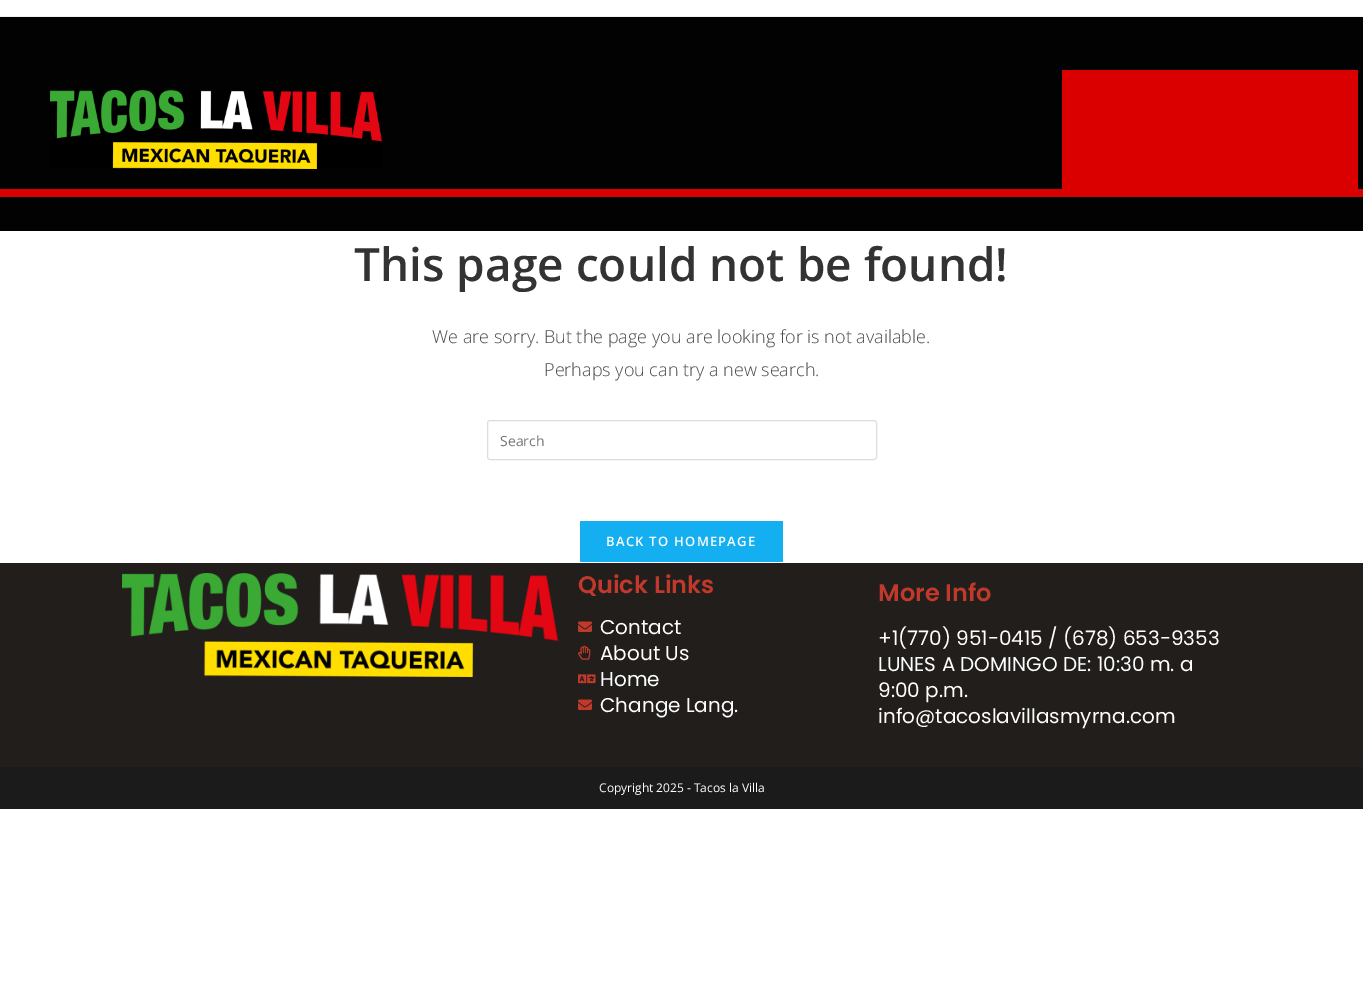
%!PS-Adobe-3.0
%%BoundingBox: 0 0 1363 984
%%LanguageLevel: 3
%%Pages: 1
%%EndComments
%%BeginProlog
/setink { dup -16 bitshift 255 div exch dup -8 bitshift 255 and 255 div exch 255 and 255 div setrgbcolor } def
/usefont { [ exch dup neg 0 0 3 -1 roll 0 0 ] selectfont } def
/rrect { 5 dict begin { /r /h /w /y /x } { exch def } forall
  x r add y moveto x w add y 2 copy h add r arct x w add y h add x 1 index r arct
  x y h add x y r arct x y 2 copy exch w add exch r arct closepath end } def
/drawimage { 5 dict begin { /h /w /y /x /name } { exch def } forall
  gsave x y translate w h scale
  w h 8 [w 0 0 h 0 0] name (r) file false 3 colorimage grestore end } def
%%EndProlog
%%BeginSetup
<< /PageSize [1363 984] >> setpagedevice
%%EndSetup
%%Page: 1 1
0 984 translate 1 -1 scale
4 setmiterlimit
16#FFFFFF setink
0 0 1363 984 rectfill
16#F1F1F1 setink
0 16 1363 1 rectfill
16#020202 setink
0 17 1363 214 rectfill
(img1.raw) 50 90 332 79 drawimage
16#DB0000 setink
1062 70 296 119 rectfill
0 189 1363 8 rectfill
/OpenSans-SemiBold 46 usefont
16#333333 setink
354 281 moveto (This page could not be found!) show
/OpenSans-Light 18 usefont
16#4A4A4A setink
432 343 moveto (We are sorry. But the page you are looking for is not available.) show
544 376 moveto (Perhaps you can try a new search.) show
16#DDDDDD setink
487.5 420.5 389 39 2.5 rrect stroke
/OpenSans-Regular 14 usefont
16#757575 setink
500 446 moveto (Search) show
16#13AFF0 setink
580 521 203 41 rectfill
/OpenSans-SemiBold 13 usefont
16#FFFFFF setink
606 546 moveto 1.25 0 (BACK TO HOMEPAGE) ashow
16#211E1C setink
0 563 1363 204 rectfill
(img2.raw) 122 573 436 104 drawimage
/Poppins-SemiBold 24 usefont
16#C0392B setink
578 593 moveto (Quick Links) show
(img3.raw) 578 621 14 11 drawimage
/Poppins-Regular 20 usefont
16#FFFFFF setink
600 634 moveto (Contact) show
(img4.raw) 578 645 13 15 drawimage
600 660 moveto (About Us) show
(img5.raw) 578 674 18 10 drawimage
600 686 moveto (Home) show
(img3.raw) 578 699 14 11 drawimage
600 712 moveto (Change Lang.) show
/Poppins-SemiBold 24 usefont
16#C0392B setink
878 601 moveto (More Info) show
/Poppins-Regular 20 usefont
16#FFFFFF setink
[
    [(+1\(770\) 951-0415 / \(678\) 653-9353) 878 645]
    [(LUNES A DOMINGO DE: 10:30 m. a) 878 671]
    [(9:00 p.m.) 878 697]
    [(info@tacoslavillasmyrna.com) 878 723]
] { aload pop moveto show } forall
16#1B1B1B setink
0 767 1363 42 rectfill
/OpenSans-Regular 12 usefont
16#FFFFFF setink
599 792 moveto (Copyright 2025 - Tacos la Villa) show
showpage
%%EOF
